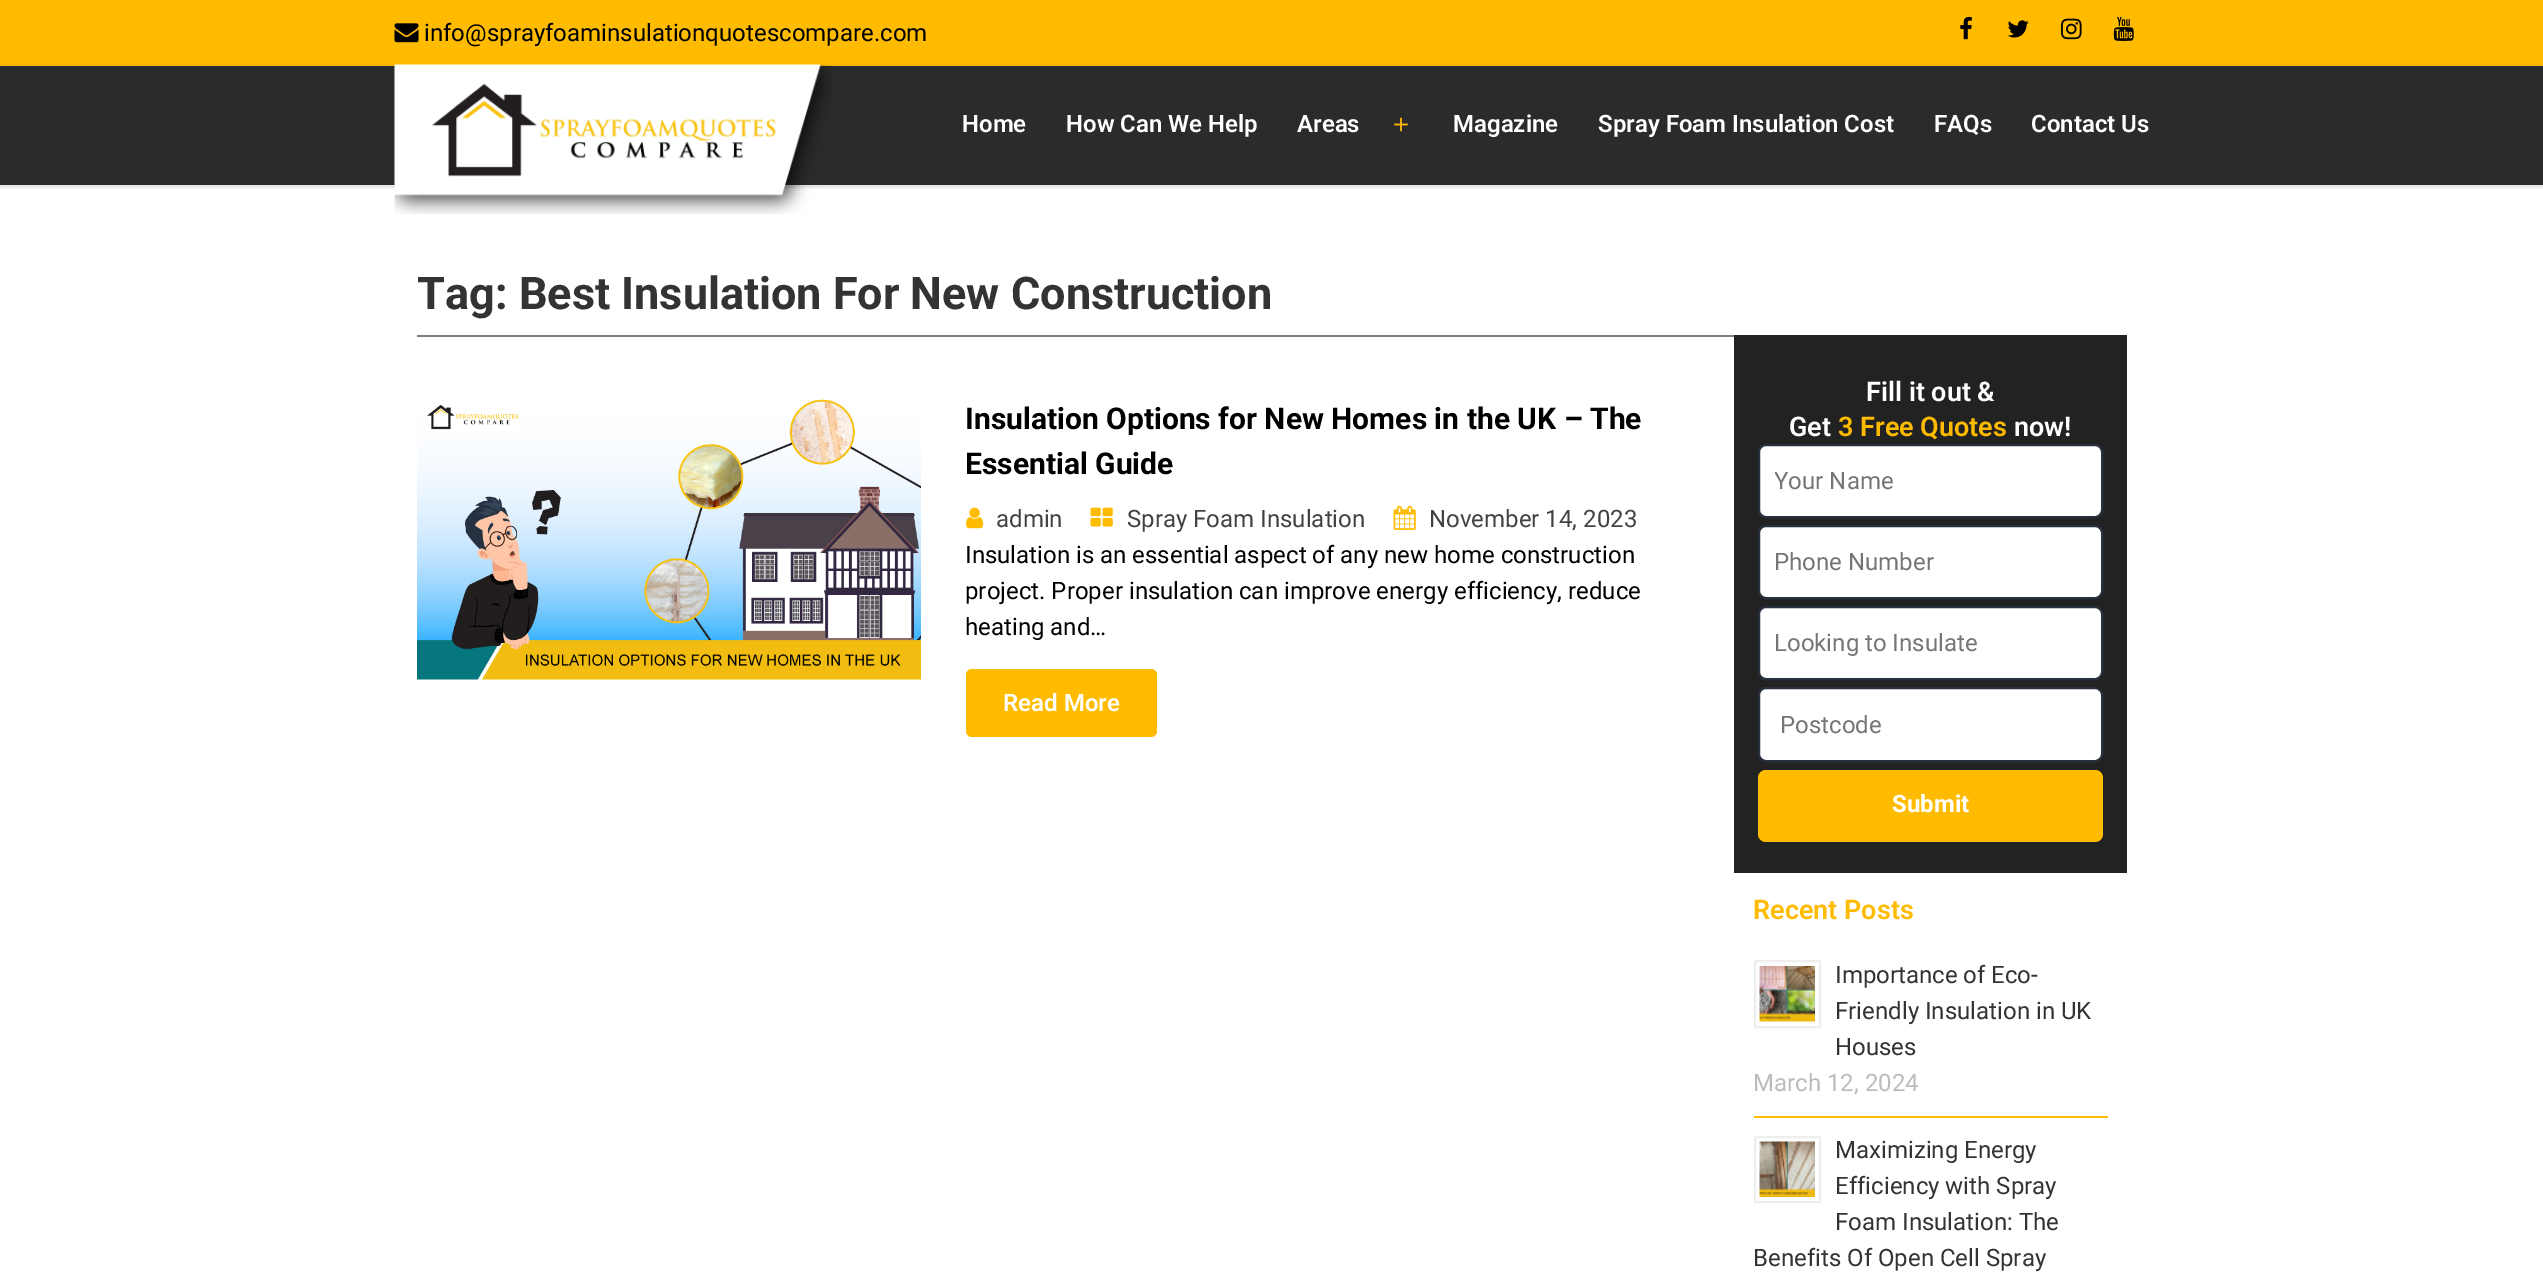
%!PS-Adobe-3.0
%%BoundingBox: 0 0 2543 1286
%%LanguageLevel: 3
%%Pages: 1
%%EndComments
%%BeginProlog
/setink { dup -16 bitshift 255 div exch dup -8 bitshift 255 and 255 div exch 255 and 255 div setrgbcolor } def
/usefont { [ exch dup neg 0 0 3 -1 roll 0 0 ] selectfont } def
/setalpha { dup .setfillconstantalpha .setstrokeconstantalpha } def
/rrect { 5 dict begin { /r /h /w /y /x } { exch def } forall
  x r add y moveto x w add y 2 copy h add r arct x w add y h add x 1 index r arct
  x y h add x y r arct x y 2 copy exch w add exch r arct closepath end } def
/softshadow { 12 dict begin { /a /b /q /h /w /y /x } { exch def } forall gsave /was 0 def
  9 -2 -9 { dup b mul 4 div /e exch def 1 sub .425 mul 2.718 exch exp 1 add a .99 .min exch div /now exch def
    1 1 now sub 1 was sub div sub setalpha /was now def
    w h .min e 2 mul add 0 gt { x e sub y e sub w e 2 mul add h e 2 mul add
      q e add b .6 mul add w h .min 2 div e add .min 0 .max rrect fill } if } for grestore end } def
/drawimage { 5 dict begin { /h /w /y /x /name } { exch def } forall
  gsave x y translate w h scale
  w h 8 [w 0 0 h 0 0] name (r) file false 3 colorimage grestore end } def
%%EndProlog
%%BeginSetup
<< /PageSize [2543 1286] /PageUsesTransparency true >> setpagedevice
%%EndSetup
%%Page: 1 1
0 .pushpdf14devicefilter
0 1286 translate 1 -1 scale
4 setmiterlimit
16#FFFFFF setink
0 0 2543 1286 rectfill
16#FFBB00 setink
0 0 2543 66 rectfill
(img1.raw) 394 23 25 20 drawimage
/Roboto-Regular 24 usefont
16#000000 setink
424 41 moveto (info@sprayfoaminsulationquotescompare.com) show
(img2.raw) 1960 16 12 24 drawimage
(img3.raw) 2007 20 22 18 drawimage
(img4.raw) 2061 18 21 22 drawimage
(img5.raw) 2113 16 21 25 drawimage
-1 66 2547 122 0 1 0.1 softshadow
16#2B2B2B setink
0 66 2543 119 rectfill
(img6.raw) 394 64 439 150 drawimage
/Roboto-SemiBold 24 usefont
16#FFFFFF setink
[
    [(Home) 962 132]
    [(How Can We Help) 1066 132]
    [(Areas) 1297 132]
] { aload pop moveto show } forall
(img7.raw) 1394 117 14 15 drawimage
[
    [(Magazine) 1453 132]
    [(Spray Foam Insulation Cost) 1598 132]
    [(FAQs) 1934 132]
    [(Contact Us) 2031 132]
] { aload pop moveto show } forall
16#808080 setink
417 335 1317 2 rectfill
/Roboto-Bold 45 usefont
16#333333 setink
417 309 moveto (Tag: Best Insulation For New Construction) show
(img8.raw) 417 399 504 281 drawimage
/Roboto-Bold 30 usefont
16#000000 setink
965 429 moveto (Insulation Options for New Homes in the UK – The) show
965 474 moveto (Essential Guide) show
(img9.raw) 966 507 18 22 drawimage
/Roboto-Regular 24 usefont
16#424242 setink
996 527 moveto (admin) show
(img10.raw) 1090 507 23 20 drawimage
1127 527 moveto (Spray Foam Insulation) show
(img11.raw) 1393 505 23 25 drawimage
1429 527 moveto (November 14, 2023) show
16#000000 setink
[
    [(Insulation is an essential aspect of any new home construction) 965 563]
    [(project. Proper insulation can improve energy efficiency, reduce) 965 599]
    [(heating and…) 965 635]
] { aload pop moveto show } forall
16#FFBB00 setink
966 669 191 68 6 rrect fill
/Roboto-SemiBold 24 usefont
16#FFFFFF setink
1003 711 moveto (Read More) show
16#222222 setink
1734 335 393 538 rectfill
/Roboto-SemiBold 27 usefont
16#FFFFFF setink
1866 401 moveto (Fill it out &) show
1789 436 moveto (Get) show
16#FFBB00 setink
1838 436 moveto (3 Free Quotes) show
16#FFFFFF setink
2014 436 moveto (now!) show
1759 445 343 72 7 rrect gsave fill grestore
16#28303D setink
2 setlinewidth
stroke
gsave
1775 467 312 28 rectclip
/Roboto-Regular 24 usefont
16#757575 setink
1774 489 moveto (Your Name) show
grestore
16#FFFFFF setink
1759 526 343 72 7 rrect gsave fill grestore
16#28303D setink
stroke
/Roboto-Regular 24 usefont
16#757575 setink
1774 570 moveto (Phone Number) show
16#FFFFFF setink
1759 607 343 72 7 rrect gsave fill grestore
16#28303D setink
stroke
16#757575 setink
1774 651 moveto (Looking to Insulate) show
16#FFFFFF setink
1759 688 343 73 7 rrect gsave fill grestore
16#28303D setink
stroke
16#757575 setink
1780 733 moveto (Postcode) show
16#FFBB00 setink
1758 770 345 72 8 rrect fill
/Roboto-Bold 24 usefont
16#FFFFFF setink
1892 812 moveto (Submit) show
/Roboto-SemiBold 27 usefont
16#FFBB00 setink
1753 919 moveto (Recent Posts) show
1754 1116 354 2 rectfill
16#EEEEEE setink
1755 961 65 66 rectstroke
(img12.raw) 1759 966 56 56 drawimage
/Roboto-Regular 24 usefont
16#333333 setink
[
    [(Importance of Eco-) 1835 983]
    [(Friendly Insulation in UK) 1835 1019]
    [(Houses) 1835 1055]
] { aload pop moveto show } forall
16#BBBBBB setink
1753 1091 moveto (March 12, 2024) show
16#EEEEEE setink
1755 1137 65 65 rectstroke
(img13.raw) 1759 1141 56 56 drawimage
16#333333 setink
[
    [(Maximizing Energy) 1835 1158]
    [(Efficiency with Spray) 1835 1194]
    [(Foam Insulation: The) 1835 1230]
    [(Benefits Of Open Cell Spray) 1753 1266]
] { aload pop moveto show } forall
.poppdf14devicefilter showpage
%%EOF
